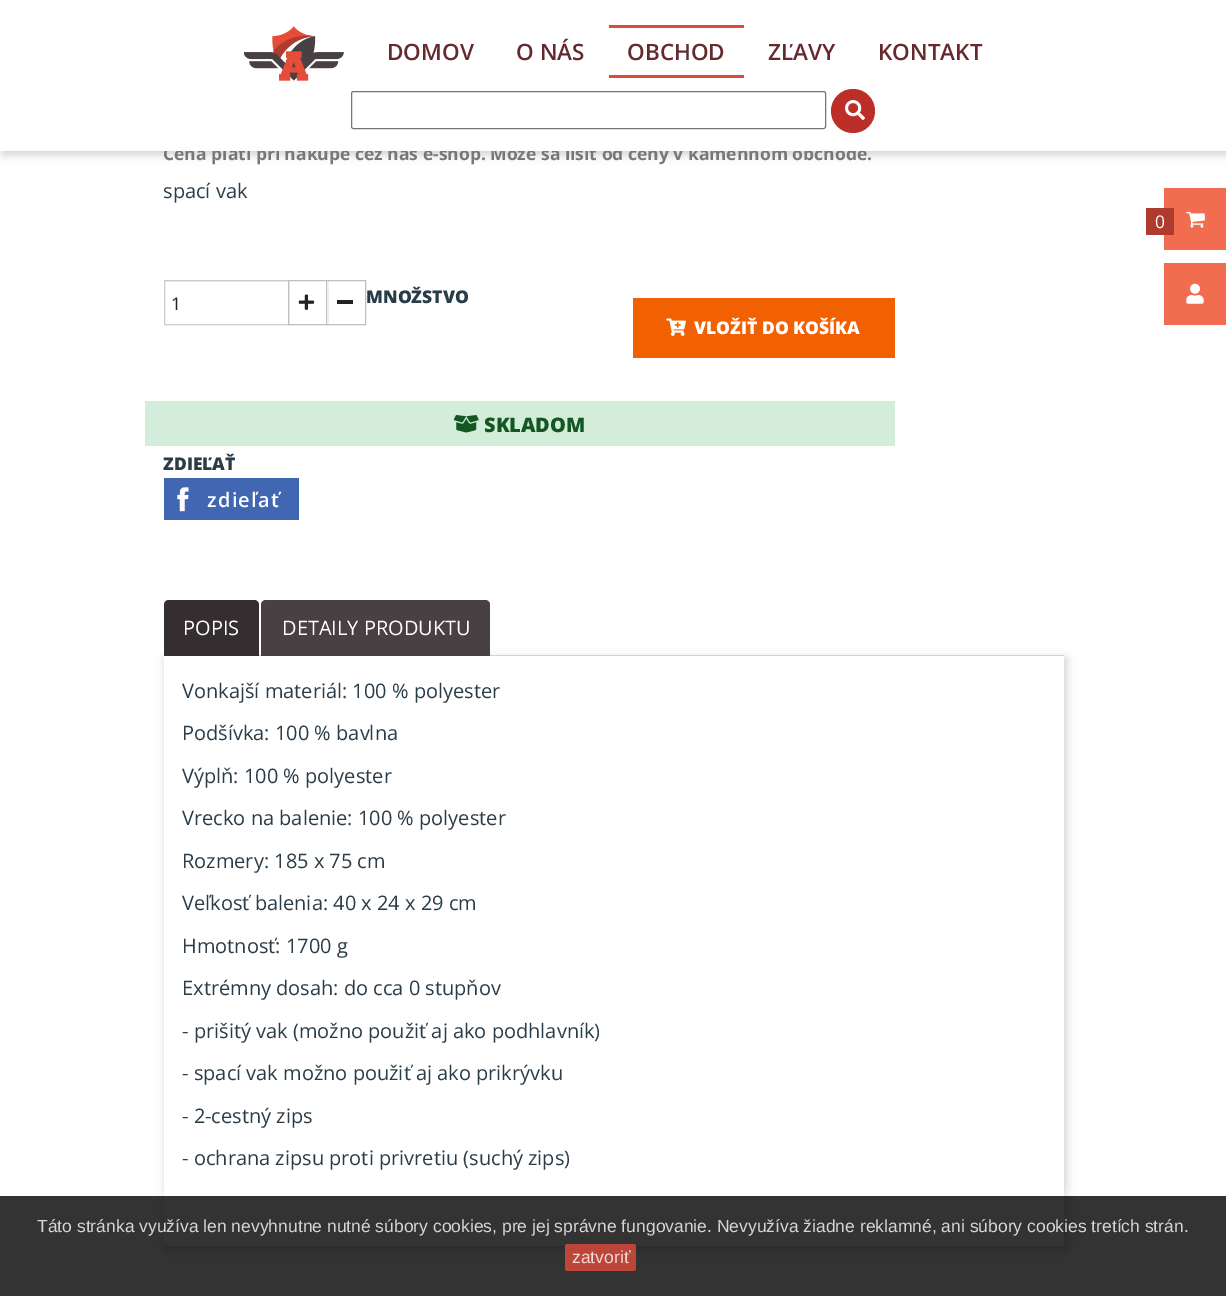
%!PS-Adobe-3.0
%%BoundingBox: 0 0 1226 1296
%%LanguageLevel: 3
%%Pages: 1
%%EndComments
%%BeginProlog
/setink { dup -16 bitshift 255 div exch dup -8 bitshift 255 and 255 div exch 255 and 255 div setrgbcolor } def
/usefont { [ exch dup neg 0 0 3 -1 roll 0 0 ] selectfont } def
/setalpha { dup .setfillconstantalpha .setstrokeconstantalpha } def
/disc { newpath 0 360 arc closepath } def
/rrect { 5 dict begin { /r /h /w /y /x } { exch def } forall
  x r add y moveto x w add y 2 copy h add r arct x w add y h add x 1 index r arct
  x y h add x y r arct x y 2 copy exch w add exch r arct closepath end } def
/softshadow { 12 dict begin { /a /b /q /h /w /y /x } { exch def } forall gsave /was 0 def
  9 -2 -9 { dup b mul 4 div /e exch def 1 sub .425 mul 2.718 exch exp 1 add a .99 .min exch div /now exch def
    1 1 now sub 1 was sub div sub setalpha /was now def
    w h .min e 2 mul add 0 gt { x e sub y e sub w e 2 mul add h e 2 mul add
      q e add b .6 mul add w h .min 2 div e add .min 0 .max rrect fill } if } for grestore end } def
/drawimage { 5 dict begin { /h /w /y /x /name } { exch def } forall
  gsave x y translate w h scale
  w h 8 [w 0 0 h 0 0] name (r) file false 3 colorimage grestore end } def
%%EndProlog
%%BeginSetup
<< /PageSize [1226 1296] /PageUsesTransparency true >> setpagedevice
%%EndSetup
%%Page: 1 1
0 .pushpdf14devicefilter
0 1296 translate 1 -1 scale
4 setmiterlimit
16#FFFFFF setink
0 0 1226 1296 rectfill
16#000000 setink
3 3 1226 151 0 5 0.2 softshadow
/OpenSans-Bold 17.5 usefont
16#777777 setink
163 160 moveto (Cena platí pri nákupe cez náš e-shop. Môže sa líšiť od ceny v kamennom obchode.) show
16#FFFFFF setink
0 0 1226 151 rectfill
(img1.raw) 244 26 100 55 drawimage
/OpenSans-SemiBold 22.5 usefont
16#662A2E setink
387 60 moveto (DOMOV) show
516 60 moveto (O NÁS) show
16#E04A3B setink
609 25 135 3 rectfill
16#662A2E setink
627 60 moveto (OBCHOD) show
16#E04A3B setink
609 75 135 3 rectfill
16#662A2E setink
768 60 moveto (ZĽAVY) show
878 60 moveto (KONTAKT) show
16#767676 setink
351.5 91.5 474 37 2 rrect stroke
16#BC2E28 setink
853 111 22 disc fill
(img2.raw) 845 100 20 20 drawimage
16#F26C4F setink
1164 188 62 62 rectfill
16#AF3A2E setink
1146 208 28 27 rectfill
/OpenSans-Regular 17.5 usefont
16#FFFFFF setink
1155 228 moveto (0) show
(img3.raw) 1186 211 19 17 drawimage
16#F26C4F setink
1164 263 62 62 rectfill
(img4.raw) 1186 283 18 21 drawimage
/OpenSans-Regular 20 usefont
16#2A3C47 setink
163 198 moveto (spací vak) show
16#ECECEC setink
165 281 123 1 rectfill
16#CCCCCC setink
164.5 280.5 124 44 rectstroke
/OpenSans-Regular 17.5 usefont
16#232323 setink
171 310 moveto (1) show
16#BFBFBF setink
288.5 280.5 39 44 rectstroke
(img5.raw) 298 294 17 16 drawimage
16#FFFFFF setink
327 281 1 43 rectfill
16#BFBFBF setink
326.5 280.5 39 44 rectstroke
16#232323 setink
337 300 16 4 rectfill
/OpenSans-ExtraBold 17.5 usefont
16#2A3C47 setink
366 303 moveto (MNOŽSTVO) show
16#F26101 setink
633 298 262 60 rectfill
(img6.raw) 666 318 20 18 drawimage
16#FFFFFF setink
694 334 moveto (VLOŽIŤ DO KOŠÍKA) show
16#D4EDDA setink
145 401 750 45 rectfill
(img7.raw) 453 415 26 18 drawimage
/OpenSans-ExtraBold 20 usefont
16#155724 setink
484 432 moveto (SKLADOM) show
/OpenSans-ExtraBold 17.5 usefont
16#2A3C47 setink
163 470 moveto (ZDIEĽAŤ) show
16#4267B2 setink
164 478 135 42 rectfill
(img8.raw) 177 487 12 25 drawimage
/OpenSans-SemiBold 20 usefont
16#FFFFFF setink
207 507 moveto 1.25 0 (zdieľať) ashow
16#DDDDDD setink
259 655 805 1 rectfill
gsave
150 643 moveto 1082 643 lineto 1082 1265 lineto 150 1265 lineto closepath 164 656 moveto 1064 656 lineto 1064 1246 lineto 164 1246 lineto closepath eoclip newpath
16#000000 setink
166 659 900 590 0 5 0.2 softshadow
grestore
16#352E30 setink
169 600 moveto 254 600 lineto 257 600 259 602 259 605 curveto 259 656 lineto 164 656 lineto 164 605 lineto 164 602 166 600 169 600 curveto closepath fill
/OpenSans-Regular 20 usefont
16#FFFFFF setink
183 635 moveto (POPIS) show
16#484042 setink
266 600 moveto 485 600 lineto 488 600 490 602 490 605 curveto 490 656 lineto 261 656 lineto 261 605 lineto 261 602 263 600 266 600 curveto closepath fill
16#FFFFFF setink
282 635 moveto (DETAILY PRODUKTU) show
16#2A3C47 setink
[
    [(Vonkajší materiál: 100 % polyester) 182 698]
    [(Podšívka: 100 % bavlna) 182 740]
    [(Výplň: 100 % polyester) 182 783]
    [(Vrecko na balenie: 100 % polyester) 182 825]
    [(Rozmery: 185 x 75 cm) 182 868]
    [(Veľkosť balenia: 40 x 24 x 29 cm) 182 910]
    [(Hmotnosť: 1700 g) 182 953]
    [(Extrémny dosah: do cca 0 stupňov) 182 995]
    [(- prišitý vak \(možno použiť aj ako podhlavník\)) 182 1038]
    [(- spací vak možno použiť aj ako prikrývku) 182 1080]
    [(- 2-cestný zips) 182 1123]
    [(- ochrana zipsu proti privretiu \(suchý zips\)) 182 1165]
] { aload pop moveto show } forall
gsave
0 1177 moveto 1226 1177 lineto 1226 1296 lineto 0 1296 lineto closepath 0 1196 moveto 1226 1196 lineto 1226 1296 lineto 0 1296 lineto closepath eoclip newpath
16#FFFFFF setink
0 1196 1226 100 0 6 0.8 softshadow
grestore
0.8 setalpha
16#000000 setink
0 1196 1226 100 rectfill
/LiberationSans-Regular 17.5 usefont
1 setalpha
16#D6D6D6 setink
37 1232 moveto (Táto stránka využíva len nevyhnutne nutné súbory cookies, pre jej správne fungovanie. Nevyužíva žiadne reklamné, ani súbory cookies tretích strán.) show
0.8 setalpha
16#E04A3B setink
565 1244 71 27 2.5 rrect fill
1 setalpha
16#F2DAD7 setink
572 1263 moveto (zatvoriť) show
.poppdf14devicefilter showpage
%%EOF
